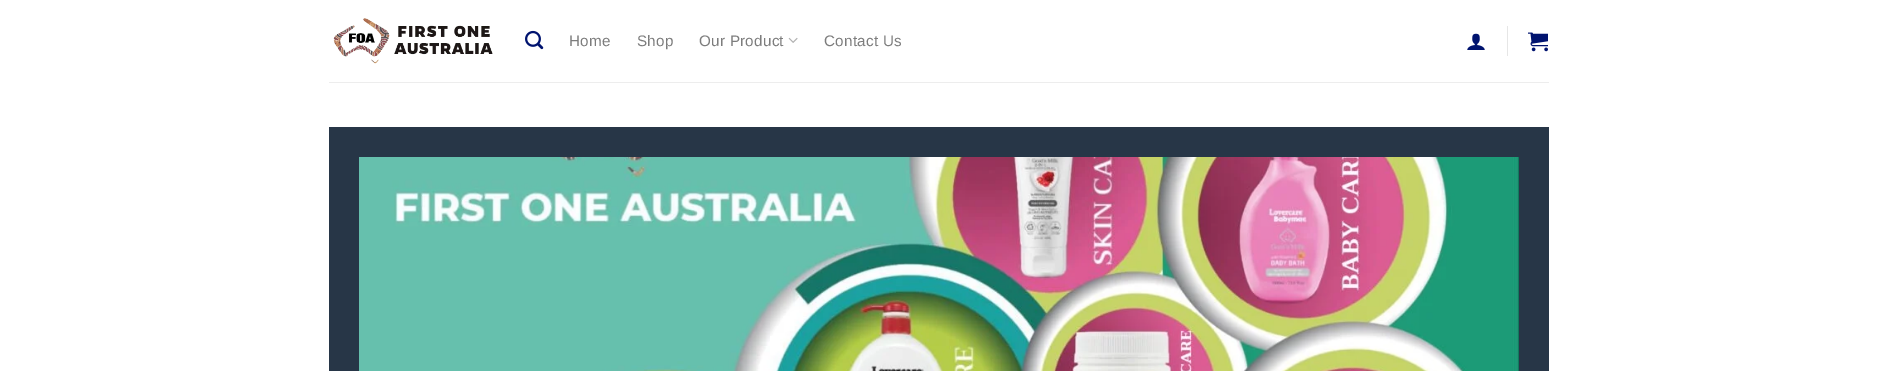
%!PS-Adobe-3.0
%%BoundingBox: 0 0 1877 371
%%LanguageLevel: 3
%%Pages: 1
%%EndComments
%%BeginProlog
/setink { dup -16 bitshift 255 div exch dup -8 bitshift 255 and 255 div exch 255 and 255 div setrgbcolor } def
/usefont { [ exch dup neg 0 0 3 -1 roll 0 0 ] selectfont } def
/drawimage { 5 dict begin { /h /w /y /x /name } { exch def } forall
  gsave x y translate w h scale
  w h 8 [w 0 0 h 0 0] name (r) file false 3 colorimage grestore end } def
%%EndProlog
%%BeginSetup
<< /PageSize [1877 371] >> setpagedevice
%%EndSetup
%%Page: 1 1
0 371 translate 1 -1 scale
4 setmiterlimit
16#FFFFFF setink
0 0 1877 371 rectfill
(img1.raw) 333 18 160 46 drawimage
(img2.raw) 525 30 19 20 drawimage
/LiberationSans-Regular 15.25 usefont
16#7D7D7D setink
569 46 moveto 0.25 0 (Home) ashow
637 46 moveto 0.25 0 (Shop) ashow
699 46 moveto 0.25 0 (Our Product) ashow
(img3.raw) 788 37 10 6 drawimage
824 46 moveto 0.25 0 (Contact Us) ashow
(img4.raw) 1467 33 18 17 drawimage
16#E6E6E6 setink
1507 26 1 30 rectfill
(img5.raw) 1528 32 20 20 drawimage
16#EDEDED setink
329 82 1220 1 rectfill
16#273647 setink
329 127 1220 244 rectfill
(img6.raw) 359 157 1160 214 drawimage
showpage
%%EOF
